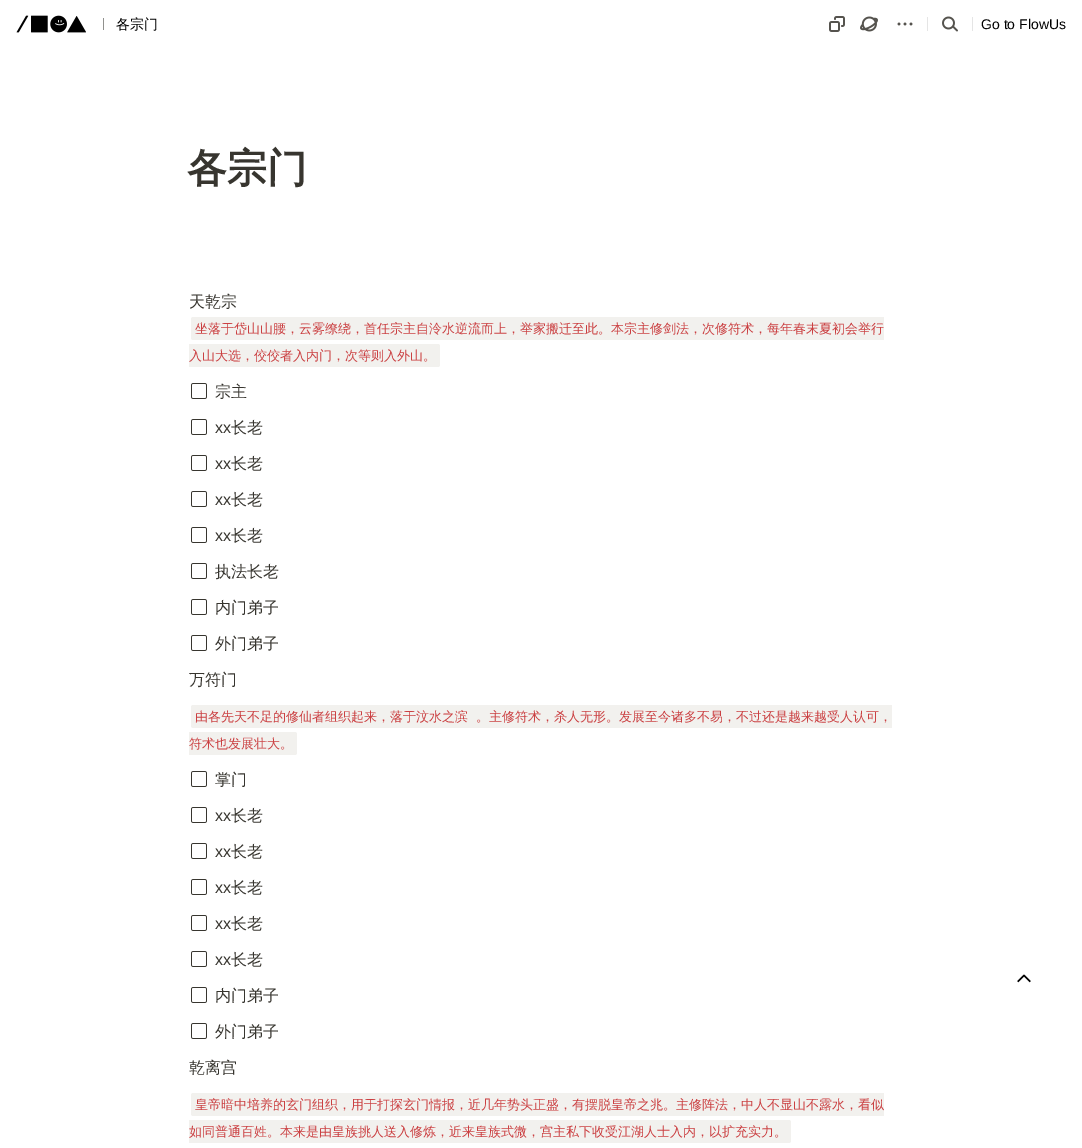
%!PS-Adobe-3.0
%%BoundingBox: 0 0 1082 1148
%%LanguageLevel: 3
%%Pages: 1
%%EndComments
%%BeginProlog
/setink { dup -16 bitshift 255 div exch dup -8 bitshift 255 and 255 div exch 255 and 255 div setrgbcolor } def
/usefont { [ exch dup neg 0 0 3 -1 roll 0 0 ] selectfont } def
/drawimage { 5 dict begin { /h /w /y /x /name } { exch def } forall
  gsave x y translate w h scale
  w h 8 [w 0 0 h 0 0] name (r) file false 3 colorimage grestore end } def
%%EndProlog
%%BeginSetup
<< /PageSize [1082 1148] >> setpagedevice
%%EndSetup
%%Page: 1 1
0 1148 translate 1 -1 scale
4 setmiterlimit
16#FFFFFF setink
0 0 1082 1148 rectfill
(img1.raw) 16 15 70 18 drawimage
16#91918E setink
103 18 1 12 rectfill
/WenQuanYiZenHei-Medium 14 usefont
16#000000 setink
116 29 moveto (各宗门) show
(img2.raw) 829 16 16 16 drawimage
(img3.raw) 860 16 18 16 drawimage
(img4.raw) 897 22 16 4 drawimage
16#E5E5E5 setink
927 17 1 14 rectfill
(img5.raw) 942 16 16 16 drawimage
972 17 1 14 rectfill
/LiberationSans-Regular 14 usefont
16#000000 setink
981 29 moveto (Go to FlowUs) show
/WenQuanYiZenHei-Bold 40 usefont
16#37352F setink
187 182 moveto (各宗门) show
/WenQuanYiZenHei-Medium 16 usefont
189 307 moveto (天乾宗) show
16#F2F1EE setink
195 317 689 23 rectfill
/WenQuanYiZenHei-Medium 13 usefont
16#CB4042 setink
195 333 moveto (坐落于岱山山腰，云雾缭绕，首任宗主自泠水逆流而上，举家搬迁至此。本宗主修剑法，次修符术，每年春末夏初会举行) show
16#F2F1EE setink
193 317 moveto 195 317 lineto 195 340 lineto 193 340 lineto 192 340 191 339 191 338 curveto 191 319 lineto 191 318 192 317 193 317 curveto closepath fill
189 344 247 23 rectfill
16#CB4042 setink
189 360 moveto (入山大选，佼佼者入内门，次等则入外山。) show
16#F2F1EE setink
436 344 moveto 438 344 lineto 439 344 440 345 440 346 curveto 440 365 lineto 440 366 439 367 438 367 curveto 436 367 lineto closepath fill
(img6.raw) 191 383 16 16 drawimage
/WenQuanYiZenHei-Medium 16 usefont
16#37352F setink
215 397 moveto (宗主) show
(img6.raw) 191 419 16 16 drawimage
/LiberationSans-Regular 16 usefont
215 433 moveto (xx) show
/WenQuanYiZenHei-Medium 16 usefont
231 433 moveto (长老) show
(img6.raw) 191 455 16 16 drawimage
/LiberationSans-Regular 16 usefont
215 469 moveto (xx) show
/WenQuanYiZenHei-Medium 16 usefont
231 469 moveto (长老) show
(img6.raw) 191 491 16 16 drawimage
/LiberationSans-Regular 16 usefont
215 505 moveto (xx) show
/WenQuanYiZenHei-Medium 16 usefont
231 505 moveto (长老) show
(img6.raw) 191 527 16 16 drawimage
/LiberationSans-Regular 16 usefont
215 541 moveto (xx) show
/WenQuanYiZenHei-Medium 16 usefont
231 541 moveto (长老) show
(img6.raw) 191 563 16 16 drawimage
215 577 moveto (执法长老) show
(img6.raw) 191 599 16 16 drawimage
215 613 moveto (内门弟子) show
(img6.raw) 191 635 16 16 drawimage
215 649 moveto (外门弟子) show
189 685 moveto (万符门) show
16#F2F1EE setink
195 705 697 23 rectfill
/WenQuanYiZenHei-Medium 13 usefont
16#CB4042 setink
195 721 moveto 4 0 32 (由各先天不足的修仙者组织起来，落于汶水之滨 。主修符术，杀人无形。发展至今诸多不易，不过还是越来越受人认可，) widthshow
16#F2F1EE setink
193 705 moveto 195 705 lineto 195 728 lineto 193 728 lineto 192 728 191 727 191 726 curveto 191 707 lineto 191 706 192 705 193 705 curveto closepath fill
189 732 104 23 rectfill
16#CB4042 setink
189 748 moveto (符术也发展壮大。) show
16#F2F1EE setink
293 732 moveto 295 732 lineto 296 732 297 733 297 734 curveto 297 753 lineto 297 754 296 755 295 755 curveto 293 755 lineto closepath fill
(img6.raw) 191 771 16 16 drawimage
/WenQuanYiZenHei-Medium 16 usefont
16#37352F setink
215 785 moveto (掌门) show
(img6.raw) 191 807 16 16 drawimage
/LiberationSans-Regular 16 usefont
215 821 moveto (xx) show
/WenQuanYiZenHei-Medium 16 usefont
231 821 moveto (长老) show
(img6.raw) 191 843 16 16 drawimage
/LiberationSans-Regular 16 usefont
215 857 moveto (xx) show
/WenQuanYiZenHei-Medium 16 usefont
231 857 moveto (长老) show
(img6.raw) 191 879 16 16 drawimage
/LiberationSans-Regular 16 usefont
215 893 moveto (xx) show
/WenQuanYiZenHei-Medium 16 usefont
231 893 moveto (长老) show
(img6.raw) 191 915 16 16 drawimage
/LiberationSans-Regular 16 usefont
215 929 moveto (xx) show
/WenQuanYiZenHei-Medium 16 usefont
231 929 moveto (长老) show
(img6.raw) 191 951 16 16 drawimage
/LiberationSans-Regular 16 usefont
215 965 moveto (xx) show
/WenQuanYiZenHei-Medium 16 usefont
231 965 moveto (长老) show
(img6.raw) 191 987 16 16 drawimage
215 1001 moveto (内门弟子) show
(img6.raw) 191 1023 16 16 drawimage
215 1037 moveto (外门弟子) show
189 1073 moveto (乾离宫) show
16#F2F1EE setink
195 1093 689 23 rectfill
/WenQuanYiZenHei-Medium 13 usefont
16#CB4042 setink
195 1109 moveto (皇帝暗中培养的玄门组织，用于打探玄门情报，近几年势头正盛，有摆脱皇帝之兆。主修阵法，中人不显山不露水，看似) show
16#F2F1EE setink
193 1093 moveto 195 1093 lineto 195 1116 lineto 193 1116 lineto 192 1116 191 1115 191 1114 curveto 191 1095 lineto 191 1094 192 1093 193 1093 curveto closepath fill
189 1120 598 23 rectfill
16#CB4042 setink
189 1136 moveto (如同普通百姓。本来是由皇族挑人送入修炼，近来皇族式微，宫主私下收受江湖人士入内，以扩充实力。) show
16#F2F1EE setink
787 1120 moveto 789 1120 lineto 790 1120 791 1121 791 1122 curveto 791 1141 lineto 791 1142 790 1143 789 1143 curveto 787 1143 lineto closepath fill
(img7.raw) 1017 974 14 9 drawimage
showpage
%%EOF
